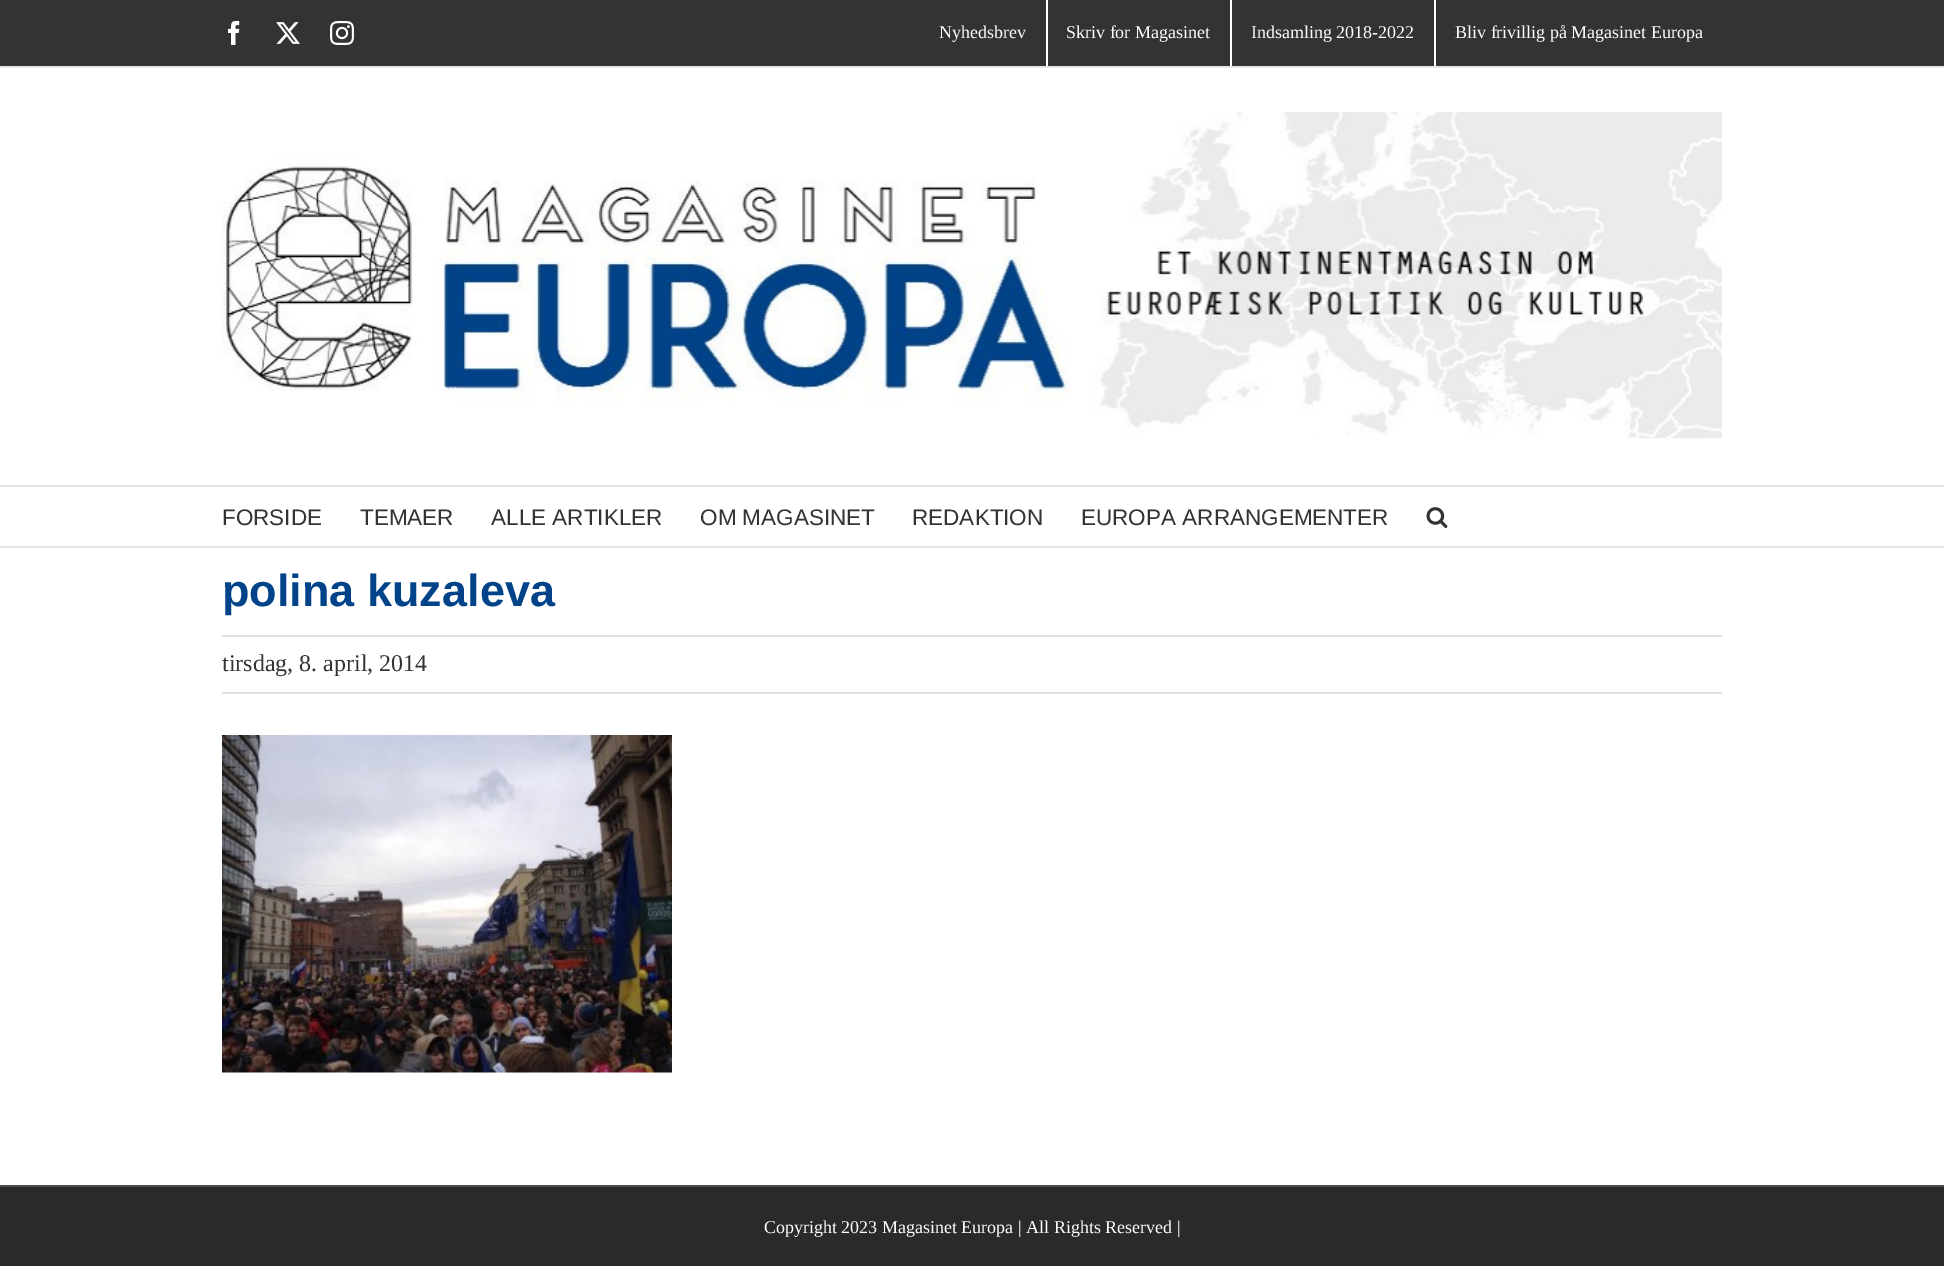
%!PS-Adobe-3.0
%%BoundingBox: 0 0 1944 1271
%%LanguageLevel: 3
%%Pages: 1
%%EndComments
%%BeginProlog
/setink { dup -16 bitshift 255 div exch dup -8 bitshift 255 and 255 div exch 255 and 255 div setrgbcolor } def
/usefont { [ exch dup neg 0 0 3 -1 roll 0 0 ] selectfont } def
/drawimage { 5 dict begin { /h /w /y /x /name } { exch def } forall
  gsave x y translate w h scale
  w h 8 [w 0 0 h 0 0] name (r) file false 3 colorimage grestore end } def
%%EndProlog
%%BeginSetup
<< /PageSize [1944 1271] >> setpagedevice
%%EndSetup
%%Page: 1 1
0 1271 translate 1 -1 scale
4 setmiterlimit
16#FFFFFF setink
0 0 1944 1271 rectfill
16#333333 setink
0 0 1944 66 rectfill
16#E5E5E5 setink
0 66 1944 2 rectfill
(img1.raw) 228 21 12 24 drawimage
(img2.raw) 276 22 24 22 drawimage
(img3.raw) 330 21 24 24 drawimage
/LiberationSerif-Regular 18 usefont
16#FFFFFF setink
939 38 moveto (Nyhedsbrev) show
1046 0 2 66 rectfill
1066 38 moveto (Skriv for Magasinet) show
1230 0 2 66 rectfill
1251 38 moveto (Indsamling 2018-2022) show
1434 0 2 66 rectfill
1455 38 moveto (Bliv frivillig på Magasinet Europa) show
16#E5E5E5 setink
0 485 1944 2 rectfill
(img4.raw) 222 112 1500 327 drawimage
0 546 1944 2 rectfill
/LiberationSans-Regular 22.5 usefont
16#333333 setink
[
    [(FORSIDE) 222 525]
    [(TEMAER) 360 525]
    [(ALLE ARTIKLER) 491 525]
    [(OM MAGASINET) 700 525]
    [(REDAKTION) 912 525]
    [(EUROPA ARRANGEMENTER) 1081 525]
] { aload pop moveto show } forall
(img5.raw) 1426 507 22 21 drawimage
/LiberationSans-Bold 45 usefont
16#004389 setink
222 606 moveto (polina kuzaleva) show
16#E0DEDE setink
222 635 1500 2 rectfill
222 692 1500 2 rectfill
/LiberationSerif-Regular 24 usefont
16#333333 setink
222 671 moveto (tirsdag, 8. april, 2014) show
(img6.raw) 222 735 450 338 drawimage
16#282A2B setink
0 1187 1944 79 rectfill
16#4B4C4D setink
0 1185 1944 2 rectfill
/LiberationSerif-Regular 18 usefont
16#FFFFFF setink
764 1233 moveto (Copyright 2023 Magasinet Europa | All Rights Reserved |) show
showpage
%%EOF
